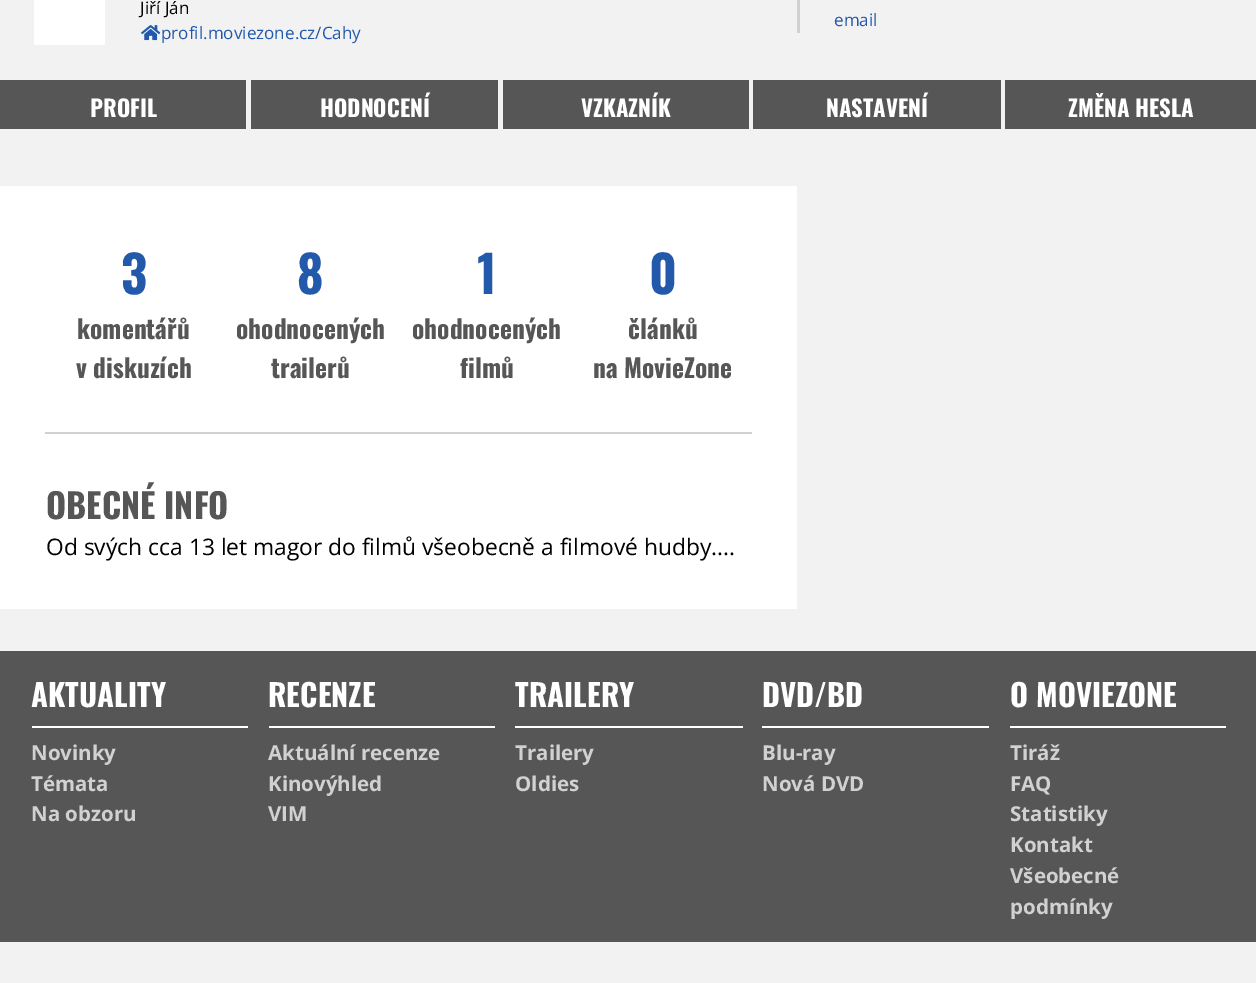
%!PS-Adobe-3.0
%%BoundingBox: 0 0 1256 983
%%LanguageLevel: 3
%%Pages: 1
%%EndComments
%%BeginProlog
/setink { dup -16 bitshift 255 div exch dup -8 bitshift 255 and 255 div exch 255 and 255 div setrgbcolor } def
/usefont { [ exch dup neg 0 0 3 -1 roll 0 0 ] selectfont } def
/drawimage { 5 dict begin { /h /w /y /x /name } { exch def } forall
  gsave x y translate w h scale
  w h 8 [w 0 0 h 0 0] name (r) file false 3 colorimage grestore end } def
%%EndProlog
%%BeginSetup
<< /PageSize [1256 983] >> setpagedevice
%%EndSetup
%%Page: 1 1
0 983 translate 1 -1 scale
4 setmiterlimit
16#F2F2F2 setink
0 0 1256 983 rectfill
16#FFFFFF setink
34 0 71 45 rectfill
/OpenSans-Regular 17.1 usefont
16#000000 setink
140 14 moveto (Jiří Ján) show
(img1.raw) 141 25 20 16 drawimage
16#2359AB setink
161 39 moveto (profil.moviezone.cz/Cahy) show
16#D1D1D1 setink
797 0 3 33 rectfill
16#2359AB setink
834 26 moveto (email) show
16#565656 setink
0 80 246 49 rectfill
/Oswald-Bold 22.8 usefont
16#FFFFFF setink
90 117 moveto (PROFIL) show
16#565656 setink
251 80 247 49 rectfill
16#FFFFFF setink
320 117 moveto (HODNOCENÍ) show
16#565656 setink
503 80 246 49 rectfill
16#FFFFFF setink
581 117 moveto (VZKAZNÍK) show
16#565656 setink
753 80 248 49 rectfill
16#FFFFFF setink
826 117 moveto (NASTAVENÍ) show
16#565656 setink
1005 80 251 49 rectfill
16#FFFFFF setink
1068 117 moveto (ZMĚNA HESLA) show
0 186 797 423 rectfill
/Oswald-Bold 51 usefont
16#2359AB setink
121 294 moveto (3) show
/Oswald-Bold 25.5 usefont
16#565656 setink
77 339 moveto (komentářů) show
76 378 moveto (v diskuzích) show
/Oswald-Bold 51 usefont
16#2359AB setink
297 294 moveto (8) show
/Oswald-Bold 25.5 usefont
16#565656 setink
236 339 moveto (ohodnocených) show
271 378 moveto (trailerů) show
/Oswald-Bold 51 usefont
16#2359AB setink
477 294 moveto (1) show
/Oswald-Bold 25.5 usefont
16#565656 setink
412 339 moveto (ohodnocených) show
460 378 moveto (filmů) show
/Oswald-Bold 51 usefont
16#2359AB setink
649 294 moveto (0) show
/Oswald-Bold 25.5 usefont
16#565656 setink
628 339 moveto (článků) show
593 378 moveto (na MovieZone) show
16#D1D1D1 setink
45 432 707 2 rectfill
/Oswald-Bold 34.25 usefont
16#565656 setink
46 519 moveto (OBECNÉ INFO) show
/OpenSans-Regular 22.8 usefont
16#000000 setink
46 555 moveto (Od svých cca 13 let magor do filmů všeobecně a filmové hudby....) show
16#565656 setink
0 651 1256 291 rectfill
16#FFFFFF setink
32 726 216 2 rectfill
/Oswald-Bold 30.75 usefont
31 707 moveto (AKTUALITY) show
/OpenSans-Bold 20.5 usefont
16#D1D1D1 setink
[
    [(Novinky) 31 760]
    [(Témata) 31 791]
    [(Na obzoru) 31 821]
] { aload pop moveto show } forall
16#FFFFFF setink
269 726 226 2 rectfill
/Oswald-Bold 30.75 usefont
268 707 moveto (RECENZE) show
/OpenSans-Bold 20.5 usefont
16#D1D1D1 setink
[
    [(Aktuální recenze) 268 760]
    [(Kinovýhled) 268 791]
    [(VIM) 268 821]
] { aload pop moveto show } forall
16#FFFFFF setink
515 726 228 2 rectfill
/Oswald-Bold 30.75 usefont
515 707 moveto (TRAILERY) show
/OpenSans-Bold 20.5 usefont
16#D1D1D1 setink
515 760 moveto (Trailery) show
515 791 moveto (Oldies) show
16#FFFFFF setink
762 726 227 2 rectfill
/Oswald-Bold 30.75 usefont
762 707 moveto (DVD/BD) show
/OpenSans-Bold 20.5 usefont
16#D1D1D1 setink
762 760 moveto (Blu-ray) show
762 791 moveto (Nová DVD) show
16#FFFFFF setink
1010 726 216 2 rectfill
/Oswald-Bold 30.75 usefont
1010 707 moveto (O MOVIEZONE) show
/OpenSans-Bold 20.5 usefont
16#D1D1D1 setink
[
    [(Tiráž) 1010 760]
    [(FAQ) 1010 791]
    [(Statistiky) 1010 821]
    [(Kontakt) 1010 852]
    [(Všeobecné) 1010 883]
    [(podmínky) 1010 914]
] { aload pop moveto show } forall
showpage
%%EOF
